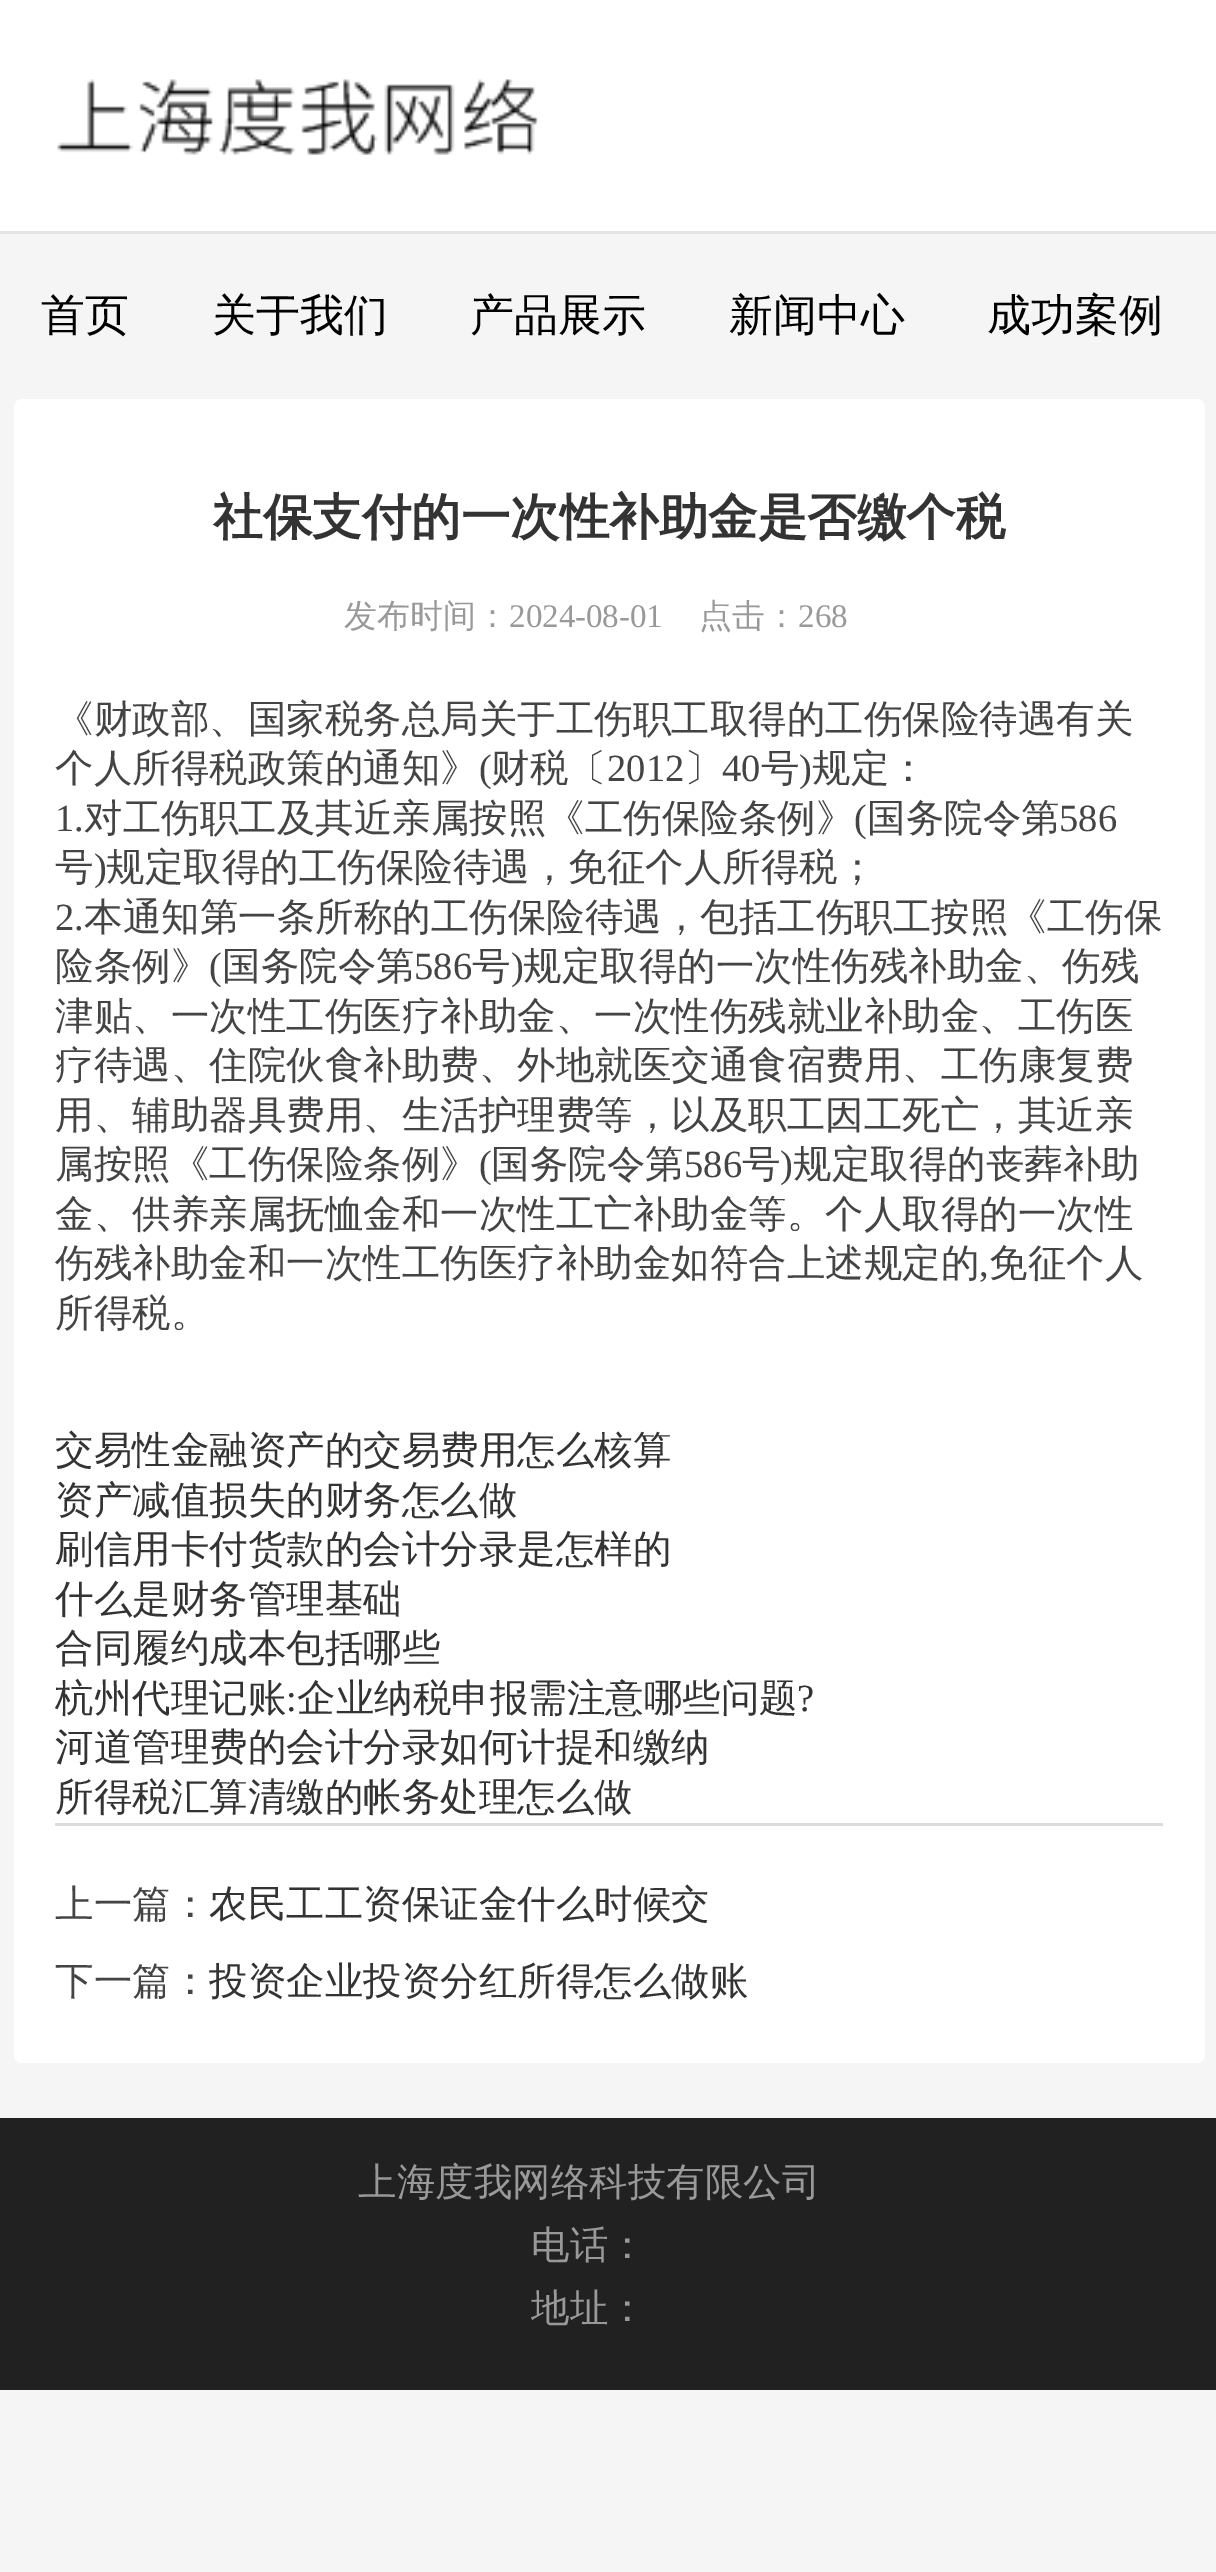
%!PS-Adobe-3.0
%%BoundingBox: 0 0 1216 2572
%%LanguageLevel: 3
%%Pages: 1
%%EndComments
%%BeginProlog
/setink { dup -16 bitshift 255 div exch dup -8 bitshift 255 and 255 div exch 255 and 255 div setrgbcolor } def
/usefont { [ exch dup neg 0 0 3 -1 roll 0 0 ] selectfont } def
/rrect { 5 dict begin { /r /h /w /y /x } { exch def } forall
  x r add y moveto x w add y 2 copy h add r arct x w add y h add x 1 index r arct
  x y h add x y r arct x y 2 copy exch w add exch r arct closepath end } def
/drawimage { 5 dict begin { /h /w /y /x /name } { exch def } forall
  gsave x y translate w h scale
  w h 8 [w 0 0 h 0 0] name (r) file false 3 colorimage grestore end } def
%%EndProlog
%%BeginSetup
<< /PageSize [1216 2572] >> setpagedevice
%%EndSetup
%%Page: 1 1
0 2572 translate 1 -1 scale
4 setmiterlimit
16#F5F5F5 setink
0 0 1216 2572 rectfill
16#FFFFFF setink
0 0 1216 231 rectfill
16#E5E5E5 setink
0 231 1216 3 rectfill
(img1.raw) 57 79 482 76 drawimage
/WenQuanYiZenHei-Medium 44 usefont
16#000000 setink
[
    [(首页) 41 330]
    [(关于我们) 212 330]
    [(产品展示) 470 330]
    [(新闻中心) 729 330]
    [(成功案例) 987 330]
] { aload pop moveto show } forall
16#FFFFFF setink
14 399 1191 1664 8 rrect fill
/WenQuanYiZenHei-Bold 49.5 usefont
16#333333 setink
213 534 moveto (社保支付的一次性补助金是否缴个税) show
/WenQuanYiZenHei-Medium 33 usefont
16#999999 setink
344 627 moveto (发布时间：) show
/LiberationSerif-Regular 33 usefont
509 627 moveto (2024-08-01) show
/WenQuanYiZenHei-Medium 33 usefont
699 627 moveto (点击：) show
/LiberationSerif-Regular 33 usefont
798 627 moveto (268) show
/WenQuanYiZenHei-Medium 38.5 usefont
16#444444 setink
55 732 moveto (《财政部、国家税务总局关于工伤职工取得的工伤保险待遇有关) show
55 781 moveto (个人所得税政策的通知》) show
/LiberationSerif-Regular 38.5 usefont
479 781 moveto (\() show
/WenQuanYiZenHei-Medium 38.5 usefont
491 781 moveto (财税〔) show
/LiberationSerif-Regular 38.5 usefont
607 781 moveto (2012) show
/WenQuanYiZenHei-Medium 38.5 usefont
684 781 moveto (〕) show
/LiberationSerif-Regular 38.5 usefont
722 781 moveto (40) show
/WenQuanYiZenHei-Medium 38.5 usefont
761 781 moveto (号) show
/LiberationSerif-Regular 38.5 usefont
799 781 moveto (\)) show
/WenQuanYiZenHei-Medium 38.5 usefont
812 781 moveto (规定：) show
/LiberationSerif-Regular 38.5 usefont
55 831 moveto (1.) show
/WenQuanYiZenHei-Medium 38.5 usefont
84 831 moveto (对工伤职工及其近亲属按照《工伤保险条例》) show
/LiberationSerif-Regular 38.5 usefont
854 831 moveto (\() show
/WenQuanYiZenHei-Medium 38.5 usefont
867 831 moveto (国务院令第) show
/LiberationSerif-Regular 38.5 usefont
1059 831 moveto (586) show
/WenQuanYiZenHei-Medium 38.5 usefont
55 880 moveto (号) show
/LiberationSerif-Regular 38.5 usefont
94 880 moveto (\)) show
/WenQuanYiZenHei-Medium 38.5 usefont
106 880 moveto (规定取得的工伤保险待遇，免征个人所得税；) show
/LiberationSerif-Regular 38.5 usefont
55 930 moveto (2.) show
/WenQuanYiZenHei-Medium 38.5 usefont
84 930 moveto (本通知第一条所称的工伤保险待遇，包括工伤职工按照《工伤保) show
55 979 moveto (险条例》) show
/LiberationSerif-Regular 38.5 usefont
209 979 moveto (\() show
/WenQuanYiZenHei-Medium 38.5 usefont
222 979 moveto (国务院令第) show
/LiberationSerif-Regular 38.5 usefont
414 979 moveto (586) show
/WenQuanYiZenHei-Medium 38.5 usefont
472 979 moveto (号) show
/LiberationSerif-Regular 38.5 usefont
511 979 moveto (\)) show
/WenQuanYiZenHei-Medium 38.5 usefont
[
    [(规定取得的一次性伤残补助金、伤残) 523 979]
    [(津贴、一次性工伤医疗补助金、一次性伤残就业补助金、工伤医) 55 1029]
    [(疗待遇、住院伙食补助费、外地就医交通食宿费用、工伤康复费) 55 1078]
    [(用、辅助器具费用、生活护理费等，以及职工因工死亡，其近亲) 55 1128]
    [(属按照《工伤保险条例》) 55 1177]
] { aload pop moveto show } forall
/LiberationSerif-Regular 38.5 usefont
479 1177 moveto (\() show
/WenQuanYiZenHei-Medium 38.5 usefont
491 1177 moveto (国务院令第) show
/LiberationSerif-Regular 38.5 usefont
684 1177 moveto (586) show
/WenQuanYiZenHei-Medium 38.5 usefont
742 1177 moveto (号) show
/LiberationSerif-Regular 38.5 usefont
780 1177 moveto (\)) show
/WenQuanYiZenHei-Medium 38.5 usefont
[
    [(规定取得的丧葬补助) 793 1177]
    [(金、供养亲属抚恤金和一次性工亡补助金等。个人取得的一次性) 55 1227]
    [(伤残补助金和一次性工伤医疗补助金如符合上述规定的) 55 1276]
] { aload pop moveto show } forall
/LiberationSerif-Regular 38.5 usefont
979 1276 moveto (,) show
/WenQuanYiZenHei-Medium 38.5 usefont
989 1276 moveto (免征个人) show
55 1326 moveto (所得税。) show
16#333333 setink
[
    [(交易性金融资产的交易费用怎么核算) 55 1463]
    [(资产减值损失的财务怎么做) 55 1513]
    [(刷信用卡付货款的会计分录是怎样的) 55 1562]
    [(什么是财务管理基础) 55 1612]
    [(合同履约成本包括哪些) 55 1661]
    [(杭州代理记账) 55 1711]
] { aload pop moveto show } forall
/LiberationSerif-Regular 38.5 usefont
286 1711 moveto (:) show
/WenQuanYiZenHei-Medium 38.5 usefont
297 1711 moveto (企业纳税申报需注意哪些问题) show
/LiberationSerif-Regular 38.5 usefont
797 1711 moveto (?) show
/WenQuanYiZenHei-Medium 38.5 usefont
55 1760 moveto (河道管理费的会计分录如何计提和缴纳) show
55 1810 moveto (所得税汇算清缴的帐务处理怎么做) show
16#DCDCDC setink
55 1823 1108 3 rectfill
16#444444 setink
55 1917 moveto (上一篇：) show
16#333333 setink
209 1917 moveto (农民工工资保证金什么时候交) show
16#444444 setink
55 1994 moveto (下一篇：) show
16#333333 setink
209 1994 moveto (投资企业投资分红所得怎么做账) show
16#212121 setink
0 2118 1216 272 rectfill
16#999999 setink
[
    [(上海度我网络科技有限公司) 358 2195]
    [(电话：) 531 2258]
    [(地址：) 531 2321]
] { aload pop moveto show } forall
showpage
%%EOF
